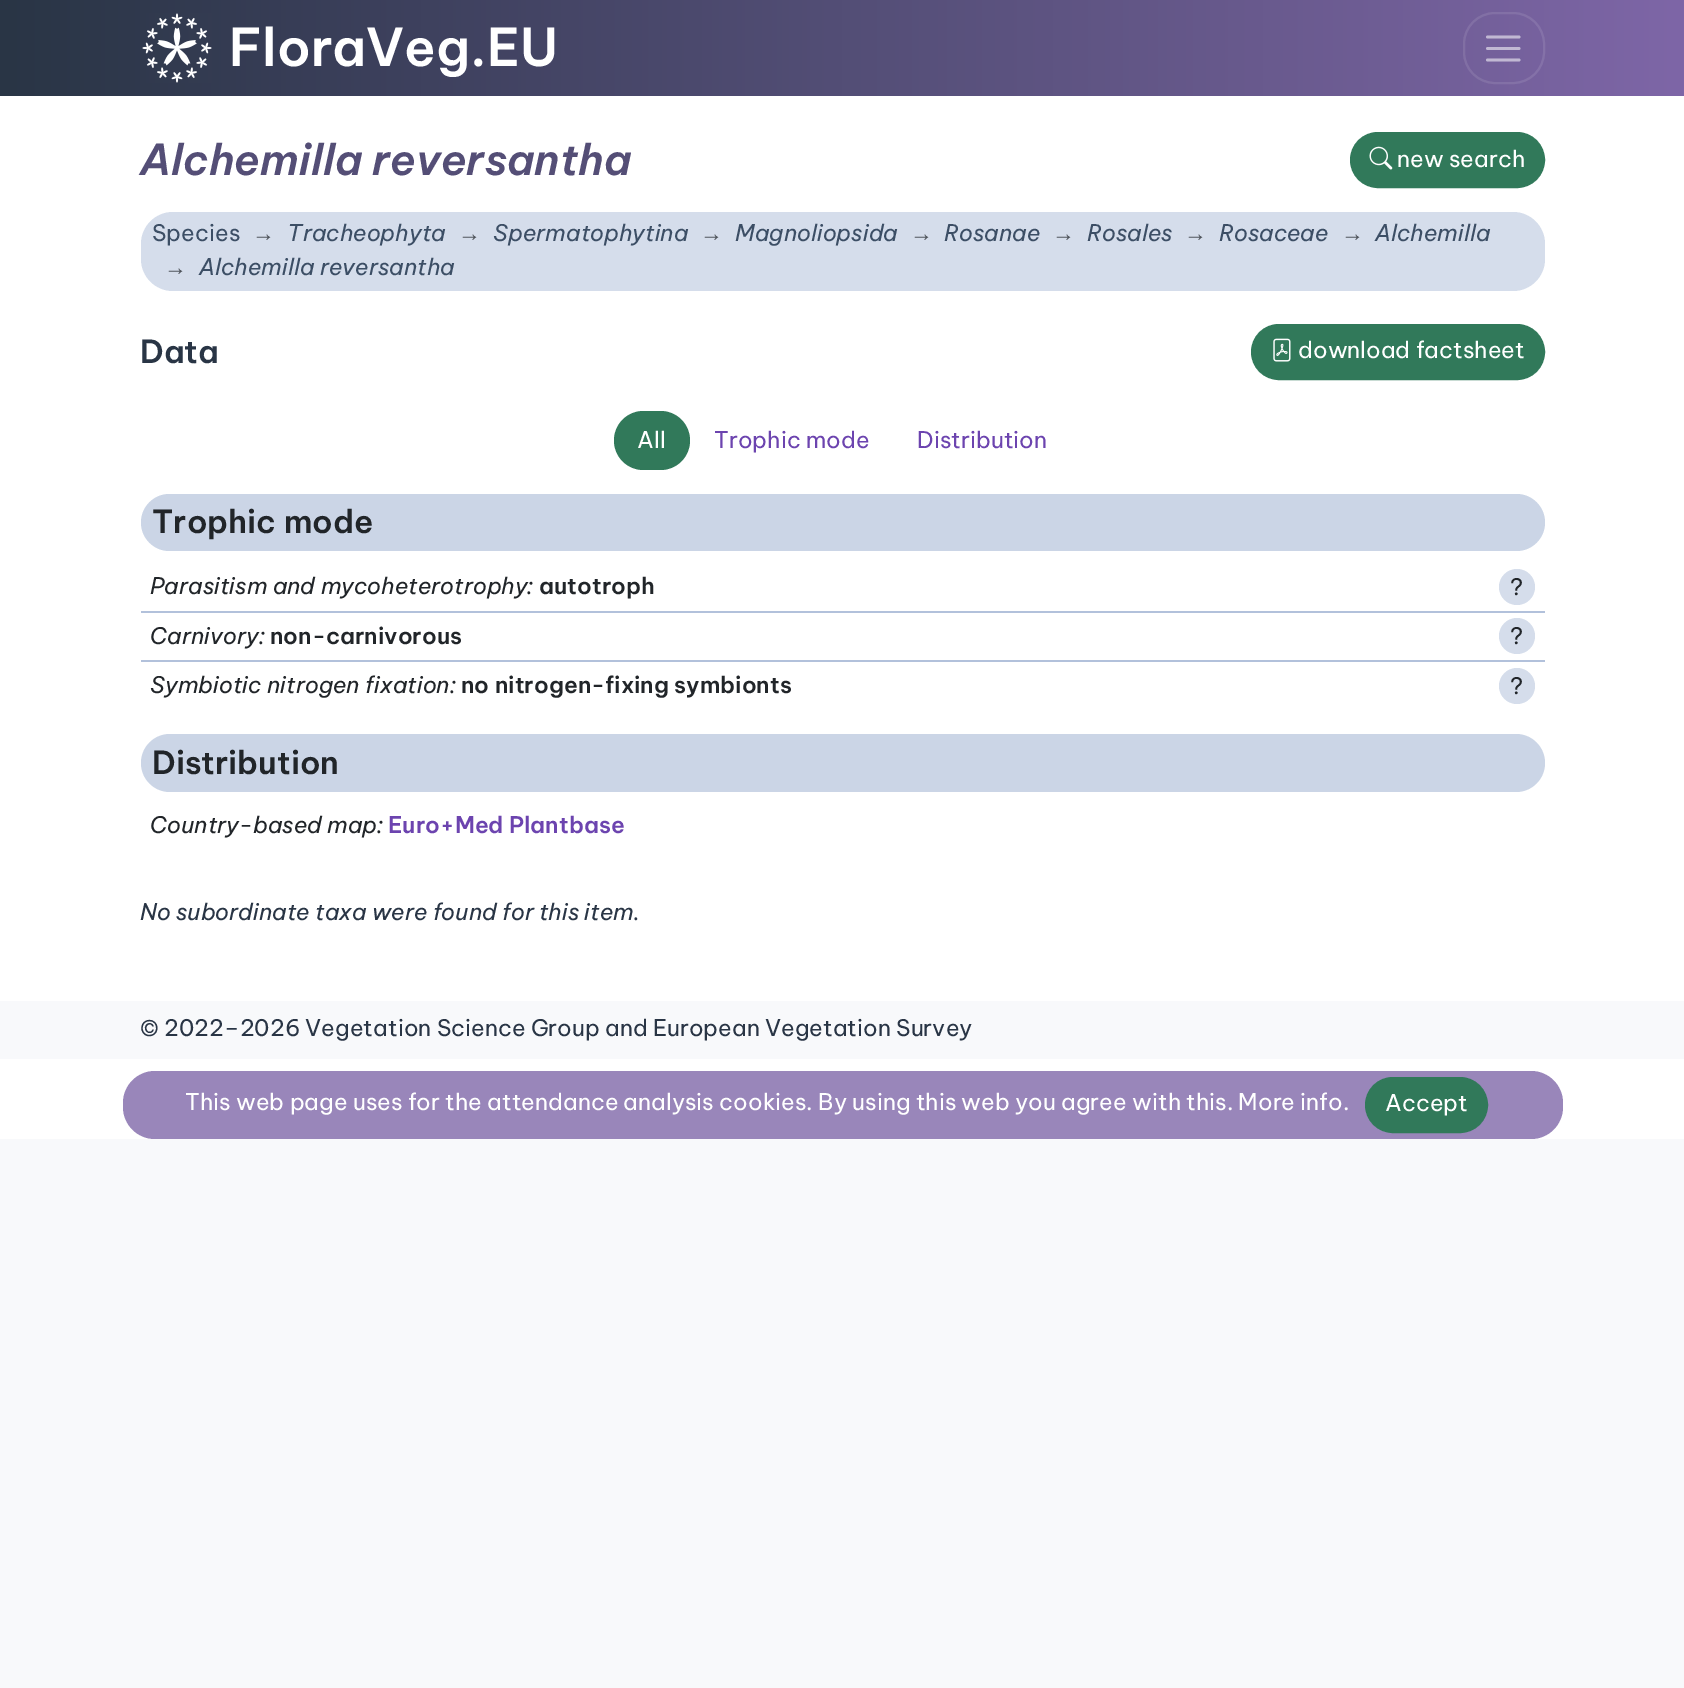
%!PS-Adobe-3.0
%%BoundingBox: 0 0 1684 1688
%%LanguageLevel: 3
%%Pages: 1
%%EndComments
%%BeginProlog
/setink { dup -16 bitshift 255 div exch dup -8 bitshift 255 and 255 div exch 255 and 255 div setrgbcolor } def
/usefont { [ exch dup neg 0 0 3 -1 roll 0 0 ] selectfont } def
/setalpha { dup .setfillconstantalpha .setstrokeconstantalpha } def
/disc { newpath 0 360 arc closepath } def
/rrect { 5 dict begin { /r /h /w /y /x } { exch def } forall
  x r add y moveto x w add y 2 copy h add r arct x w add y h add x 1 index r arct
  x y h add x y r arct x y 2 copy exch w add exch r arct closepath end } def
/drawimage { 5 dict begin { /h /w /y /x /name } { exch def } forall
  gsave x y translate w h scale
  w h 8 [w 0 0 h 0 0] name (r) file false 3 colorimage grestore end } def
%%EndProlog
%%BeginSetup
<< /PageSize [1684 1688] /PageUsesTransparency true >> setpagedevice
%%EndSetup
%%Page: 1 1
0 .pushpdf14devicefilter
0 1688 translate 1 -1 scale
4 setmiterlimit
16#F8F9FB setink
0 0 1684 1688 rectfill
gsave 0 0 moveto 1684 0 lineto 1684 96 lineto 0 96 lineto closepath clip newpath
<< /ShadingType 2 /ColorSpace /DeviceRGB /Coords [0 48 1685 48] /Extend [true true] /Function << /FunctionType 2 /Domain [0 1] /C0 [0.161 0.208 0.271] /C1 [0.494 0.4 0.655] /N 1 >> >> shfill grestore
(img1.raw) 142 13 70 70 drawimage
/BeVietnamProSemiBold-SemiBold 52 usefont
16#FFFFFF setink
229 66 moveto (FloraVeg.EU) show
0.1 setalpha
2 setlinewidth
1464 13 80 70 31 rrect stroke
1 setalpha
16#C1B8D3 setink
2.8 setlinewidth
1 setlinecap
1487.5 37 moveto 1519 37 lineto 1487.5 48.5 moveto 1519 48.5 lineto 1487.5 60 moveto 1519 60 lineto stroke
16#FFFFFF setink
0 96 1684 1043 rectfill
/BeVietnamProSemiBold-SemiBoldItalic 42.5 usefont
16#544E76 setink
140 175 moveto (Alchemilla reversantha) show
16#31795A setink
1351 133 193 54 27 rrect gsave fill grestore
2 setlinewidth
0 setlinecap
stroke
(img2.raw) 1369 146 24 24 drawimage
/BeVietnamPro-Regular 22.8 usefont
16#FFFFFF setink
1397 167 moveto (new search) show
16#D5DDEB setink
141 212 1404 79 32 rrect fill
16#3C4E65 setink
152 241 moveto (Species) show
/LiberationSans-Regular 22.8 usefont
16#4E535A setink
252 241 moveto (→) show
/BeVietnamPro-Italic 22.8 usefont
16#3C4E65 setink
287 241 moveto (Tracheophyta) show
/LiberationSans-Regular 22.8 usefont
16#4E535A setink
458 241 moveto (→) show
/BeVietnamPro-Italic 22.8 usefont
16#3C4E65 setink
493 241 moveto (Spermatophytina) show
/LiberationSans-Regular 22.8 usefont
16#4E535A setink
700 241 moveto (→) show
/BeVietnamPro-Italic 22.8 usefont
16#3C4E65 setink
735 241 moveto (Magnoliopsida) show
/LiberationSans-Regular 22.8 usefont
16#4E535A setink
910 241 moveto (→) show
/BeVietnamPro-Italic 22.8 usefont
16#3C4E65 setink
944 241 moveto (Rosanae) show
/LiberationSans-Regular 22.8 usefont
16#4E535A setink
1052 241 moveto (→) show
/BeVietnamPro-Italic 22.8 usefont
16#3C4E65 setink
1087 241 moveto (Rosales) show
/LiberationSans-Regular 22.8 usefont
16#4E535A setink
1184 241 moveto (→) show
/BeVietnamPro-Italic 22.8 usefont
16#3C4E65 setink
1219 241 moveto (Rosaceae) show
/LiberationSans-Regular 22.8 usefont
16#4E535A setink
1341 241 moveto (→) show
/BeVietnamPro-Italic 22.8 usefont
16#3C4E65 setink
1375 241 moveto (Alchemilla) show
/LiberationSans-Regular 22.8 usefont
16#4E535A setink
164 275 moveto (→) show
/BeVietnamPro-Italic 22.8 usefont
16#3C4E65 setink
199 275 moveto (Alchemilla reversantha) show
/BeVietnamProSemiBold-SemiBold 31.75 usefont
16#293545 setink
140 363 moveto (Data) show
16#31795A setink
1252 325 292 54 27 rrect gsave fill grestore
stroke
(img3.raw) 1273 338 18 24 drawimage
/BeVietnamPro-Regular 22.8 usefont
16#FFFFFF setink
1298 358 moveto (download factsheet) show
16#31795A setink
614 411 76 59 29.5 rrect fill
16#FFFFFF setink
637 448 moveto (All) show
16#6C44AF setink
714 448 moveto (Trophic mode) show
917 448 moveto (Distribution) show
16#CBD5E6 setink
141 494 1404 57 28.5 rrect fill
/BeVietnamProSemiBold-SemiBold 31.75 usefont
16#212529 setink
152 533 moveto (Trophic mode) show
/BeVietnamPro-Italic 22.8 usefont
150 594 moveto (Parasitism and mycoheterotrophy) show
527 594 moveto (:) show
/BeVietnamProSemiBold-SemiBold 22.8 usefont
539 594 moveto (autotroph) show
16#D5DDEB setink
1517 587 18 disc fill
/BeVietnamPro-Regular 22.8 usefont
16#212529 setink
1510 595 moveto (?) show
16#B2C1DB setink
141 611 1404 2 rectfill
/BeVietnamPro-Italic 22.8 usefont
16#212529 setink
150 644 moveto (Carnivory:) show
/BeVietnamProSemiBold-SemiBold 22.8 usefont
270 644 moveto (non-carnivorous) show
16#D5DDEB setink
1517 636 18 disc fill
/BeVietnamPro-Regular 22.8 usefont
16#212529 setink
1510 644 moveto (?) show
16#B2C1DB setink
141 660 1404 2 rectfill
/BeVietnamPro-Italic 22.8 usefont
16#212529 setink
150 693 moveto (Symbiotic nitrogen fixation:) show
/BeVietnamProSemiBold-SemiBold 22.8 usefont
461 693 moveto (no nitrogen-fixing symbionts) show
16#D5DDEB setink
1517 686 18 disc fill
/BeVietnamPro-Regular 22.8 usefont
16#212529 setink
1510 694 moveto (?) show
16#CBD5E6 setink
141 734 1404 58 29 rrect fill
/BeVietnamProSemiBold-SemiBold 31.75 usefont
16#212529 setink
152 774 moveto (Distribution) show
/BeVietnamPro-Italic 22.8 usefont
150 833 moveto (Country-based map:) show
/BeVietnamProSemiBold-SemiBold 22.8 usefont
16#6C44AF setink
388 833 moveto (Euro+Med Plantbase) show
/BeVietnamPro-Italic 22.8 usefont
16#293545 setink
140 920 moveto (No subordinate taxa were found for this item.) show
16#F8F9FB setink
0 1001 1684 58 rectfill
/BeVietnamPro-Regular 22.8 usefont
16#293545 setink
140 1036 moveto (© 2022–2026 Vegetation Science Group and European Vegetation Survey) show
16#9986BA setink
123 1071 1440 68 32 rrect fill
16#FFFFFF setink
185 1110 moveto (This web page uses for the attendance analysis cookies. By using this web you agree with this. More info.) show
16#31795A setink
1366 1078 121 54 27 rrect gsave fill grestore
stroke
16#FFFFFF setink
1385 1111 moveto (Accept) show
.poppdf14devicefilter showpage
%%EOF
